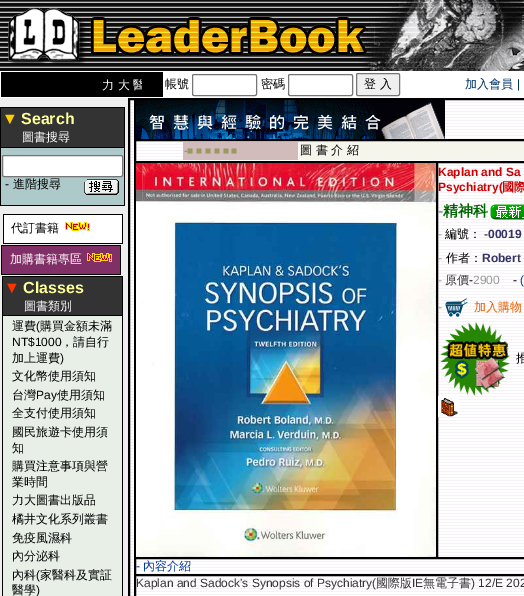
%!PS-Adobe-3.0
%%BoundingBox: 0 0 524 596
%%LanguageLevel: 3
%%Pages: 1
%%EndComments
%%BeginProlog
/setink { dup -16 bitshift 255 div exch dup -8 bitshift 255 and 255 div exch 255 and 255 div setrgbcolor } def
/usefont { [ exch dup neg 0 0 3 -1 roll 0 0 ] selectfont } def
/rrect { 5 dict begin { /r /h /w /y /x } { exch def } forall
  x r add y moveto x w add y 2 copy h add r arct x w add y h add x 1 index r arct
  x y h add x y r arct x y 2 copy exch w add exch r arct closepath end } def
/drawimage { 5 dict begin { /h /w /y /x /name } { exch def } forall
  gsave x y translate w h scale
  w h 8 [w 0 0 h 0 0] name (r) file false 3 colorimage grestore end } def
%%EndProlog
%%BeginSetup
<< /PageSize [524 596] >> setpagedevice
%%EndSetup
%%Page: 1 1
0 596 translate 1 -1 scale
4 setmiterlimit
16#EEEEEE setink
0 0 524 596 rectfill
(img1.raw) 0 0 524 71 drawimage
16#FFFFFF setink
0 71 524 27 rectfill
16#000000 setink
1 72 162 25 rectfill
gsave
22 78 120 13 rectclip
/WenQuanYiZenHei-Medium 12 usefont
16#FFFFFF setink
102 89 moveto (力 大 醫) show
grestore
/WenQuanYiZenHei-Medium 12 usefont
165 88 moveto (帳號) show
16#767676 setink
192.5 74.5 64 21 1.5 rrect stroke
16#000000 setink
261 88 moveto (密碼) show
16#767676 setink
288.5 74.5 64 21 1.5 rrect stroke
16#EFEFEF setink
356.5 73.5 43 22 1.5 rrect gsave fill grestore
16#767676 setink
stroke
16#000000 setink
364 88 moveto (登 入) show
16#003366 setink
465 88 moveto (加入會員) show
/LiberationSans-Regular 12 usefont
517 88 moveto (|) show
16#000000 setink
0 107 125 99 rectfill
16#333333 setink
1 108 123 39 rectfill
/LiberationSans-Bold 16 usefont
16#FFCC00 setink
2 124 moveto (▼) show
16#FFFF99 setink
21 124 moveto (Search) show
/WenQuanYiZenHei-Medium 12 usefont
16#FFFFFF setink
22 141 moveto (圖書搜尋) show
16#ADC9C9 setink
1 148 123 57 rectfill
16#FFFFFF setink
2.5 155.5 120 21 1.5 rrect gsave fill grestore
16#767676 setink
stroke
/LiberationSans-Regular 12 usefont
16#000000 setink
5 188 moveto (-) show
/WenQuanYiZenHei-Medium 12 usefont
13 188 moveto (進階搜尋) show
(img2.raw) 84 179 35 16 drawimage
3 214 120 30 rectfill
16#FFFFFF setink
4 215 118 28 rectfill
16#000000 setink
11 232 moveto (代訂書籍) show
(img3.raw) 65 222 25 9 drawimage
1 245 120 30 rectfill
16#803066 setink
2 246 118 28 rectfill
16#FFFFFF setink
10 263 moveto (加購書籍專區) show
(img4.raw) 87 253 25 9 drawimage
16#000000 setink
2 276 121 320 rectfill
16#333333 setink
3 277 119 38 rectfill
/LiberationSans-Bold 16 usefont
16#FF3300 setink
4 293 moveto (▼) show
16#FFFF99 setink
23 293 moveto (Classes) show
/WenQuanYiZenHei-Medium 12 usefont
16#FFFFFF setink
24 310 moveto (圖書類別) show
16#E7EFE7 setink
3 316 119 280 rectfill
16#000000 setink
12 330 moveto (運費) show
/LiberationSans-Regular 12 usefont
36 330 moveto (\() show
/WenQuanYiZenHei-Medium 12 usefont
40 330 moveto (購買金額未滿) show
/LiberationSans-Regular 12 usefont
12 346 moveto (NT$1000) show
/WenQuanYiZenHei-Medium 12 usefont
61 346 moveto (，請自行) show
12 362 moveto (加上運費) show
/LiberationSans-Regular 12 usefont
60 362 moveto (\)) show
/WenQuanYiZenHei-Medium 12 usefont
12 380 moveto (文化幣使用須知) show
12 399 moveto (台灣) show
/LiberationSans-Regular 12 usefont
36 399 moveto (Pay) show
/WenQuanYiZenHei-Medium 12 usefont
[
    [(使用須知) 57 399]
    [(全支付使用須知) 12 417]
    [(國民旅遊卡使用須) 12 436]
    [(知) 12 452]
    [(購買注意事項與營) 12 470]
    [(業時間) 12 486]
    [(力大圖書出版品) 12 504]
    [(橘井文化系列叢書) 12 523]
    [(免疫風濕科) 12 542]
    [(內分泌科) 12 560]
    [(內科) 12 579]
] { aload pop moveto show } forall
/LiberationSans-Regular 12 usefont
36 579 moveto (\() show
/WenQuanYiZenHei-Medium 12 usefont
40 579 moveto (家醫科及實証) show
12 594 moveto (醫學) show
/LiberationSans-Regular 12 usefont
36 594 moveto (\)) show
(img5.raw) 136 100 388 496 drawimage
128.5 98.5 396 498 rectstroke
(img6.raw) 130 100 4 496 drawimage
129.5 99.5 5 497 rectstroke
135.5 99.5 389 40 rectstroke
(img7.raw) 136 100 309 39 drawimage
135.5 140.5 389 21 rectstroke
16#D2BBBB setink
183 142 115 18 rectfill
/LiberationSans-Bold 10 usefont
16#999966 setink
184 154 moveto (-■ ■ ■ ■ ■ ■) show
16#F5F5EB setink
299 142 225 18 rectfill
/WenQuanYiZenHei-Medium 12 usefont
16#000000 setink
300 154 moveto (圖 書 介 紹) show
135.5 162.5 301 395 rectstroke
(img8.raw) 136 163 300 394 drawimage
437.5 162.5 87 395 rectstroke
/LiberationSans-Bold 12 usefont
16#CC0000 setink
438 176 moveto (Kaplan and Sa) show
438 191 moveto (Psychiatry\() show
/WenQuanYiZenHei-Bold 12 usefont
502 191 moveto (國際) show
/LiberationSans-Bold 16 usefont
16#999999 setink
438 216 moveto (-) show
/WenQuanYiZenHei-Bold 15 usefont
16#006600 setink
443 216 moveto (精神科) show
(img9.raw) 490 204 34 16 drawimage
/LiberationSans-Regular 12 usefont
16#999999 setink
438 238 moveto (-) show
/WenQuanYiZenHei-Medium 12 usefont
16#000000 setink
445 238 moveto (編號：) show
/LiberationSans-Bold 12 usefont
16#333366 setink
484 238 moveto (-00019) show
/LiberationSans-Regular 12 usefont
16#999999 setink
438 262 moveto (-) show
/WenQuanYiZenHei-Medium 12 usefont
16#000000 setink
446 262 moveto (作者：) show
/LiberationSans-Bold 12 usefont
16#333366 setink
482 262 moveto (Robert) show
/LiberationSans-Regular 12 usefont
16#999999 setink
438 284 moveto (-) show
/WenQuanYiZenHei-Medium 12 usefont
16#333333 setink
445 284 moveto (原價) show
/LiberationSans-Regular 12 usefont
16#000000 setink
469 284 moveto (-) show
16#999999 setink
473 284 moveto (2900) show
16#000000 setink
513 284 moveto (-) show
16#003399 setink
520 284 moveto (\() show
16#999999 setink
438 311 moveto (-) show
(img10.raw) 445 298 23 19 drawimage
/WenQuanYiZenHei-Medium 12 usefont
16#EA5E00 setink
474 311 moveto (加入購物) show
(img11.raw) 439 322 72 74 drawimage
16#000000 setink
516 362 moveto (推) show
(img12.raw) 438 396 21 21 drawimage
135.5 558.5 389 16 rectstroke
/LiberationSans-Regular 12 usefont
16#003399 setink
136 570 moveto (-) show
/WenQuanYiZenHei-Medium 12 usefont
143 570 moveto (內容介紹) show
16#000000 setink
135.5 575.5 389 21 rectstroke
/LiberationSans-Regular 12 usefont
16#333333 setink
136 587 moveto (Kaplan and Sadock's Synopsis of Psychiatry\() show
/WenQuanYiZenHei-Medium 12 usefont
376 587 moveto (國際版) show
/LiberationSans-Regular 12 usefont
412 587 moveto (IE) show
/WenQuanYiZenHei-Medium 12 usefont
423 587 moveto (無電子書) show
/LiberationSans-Regular 12 usefont
471 587 moveto (\) 12/E 202) show
showpage
%%EOF
